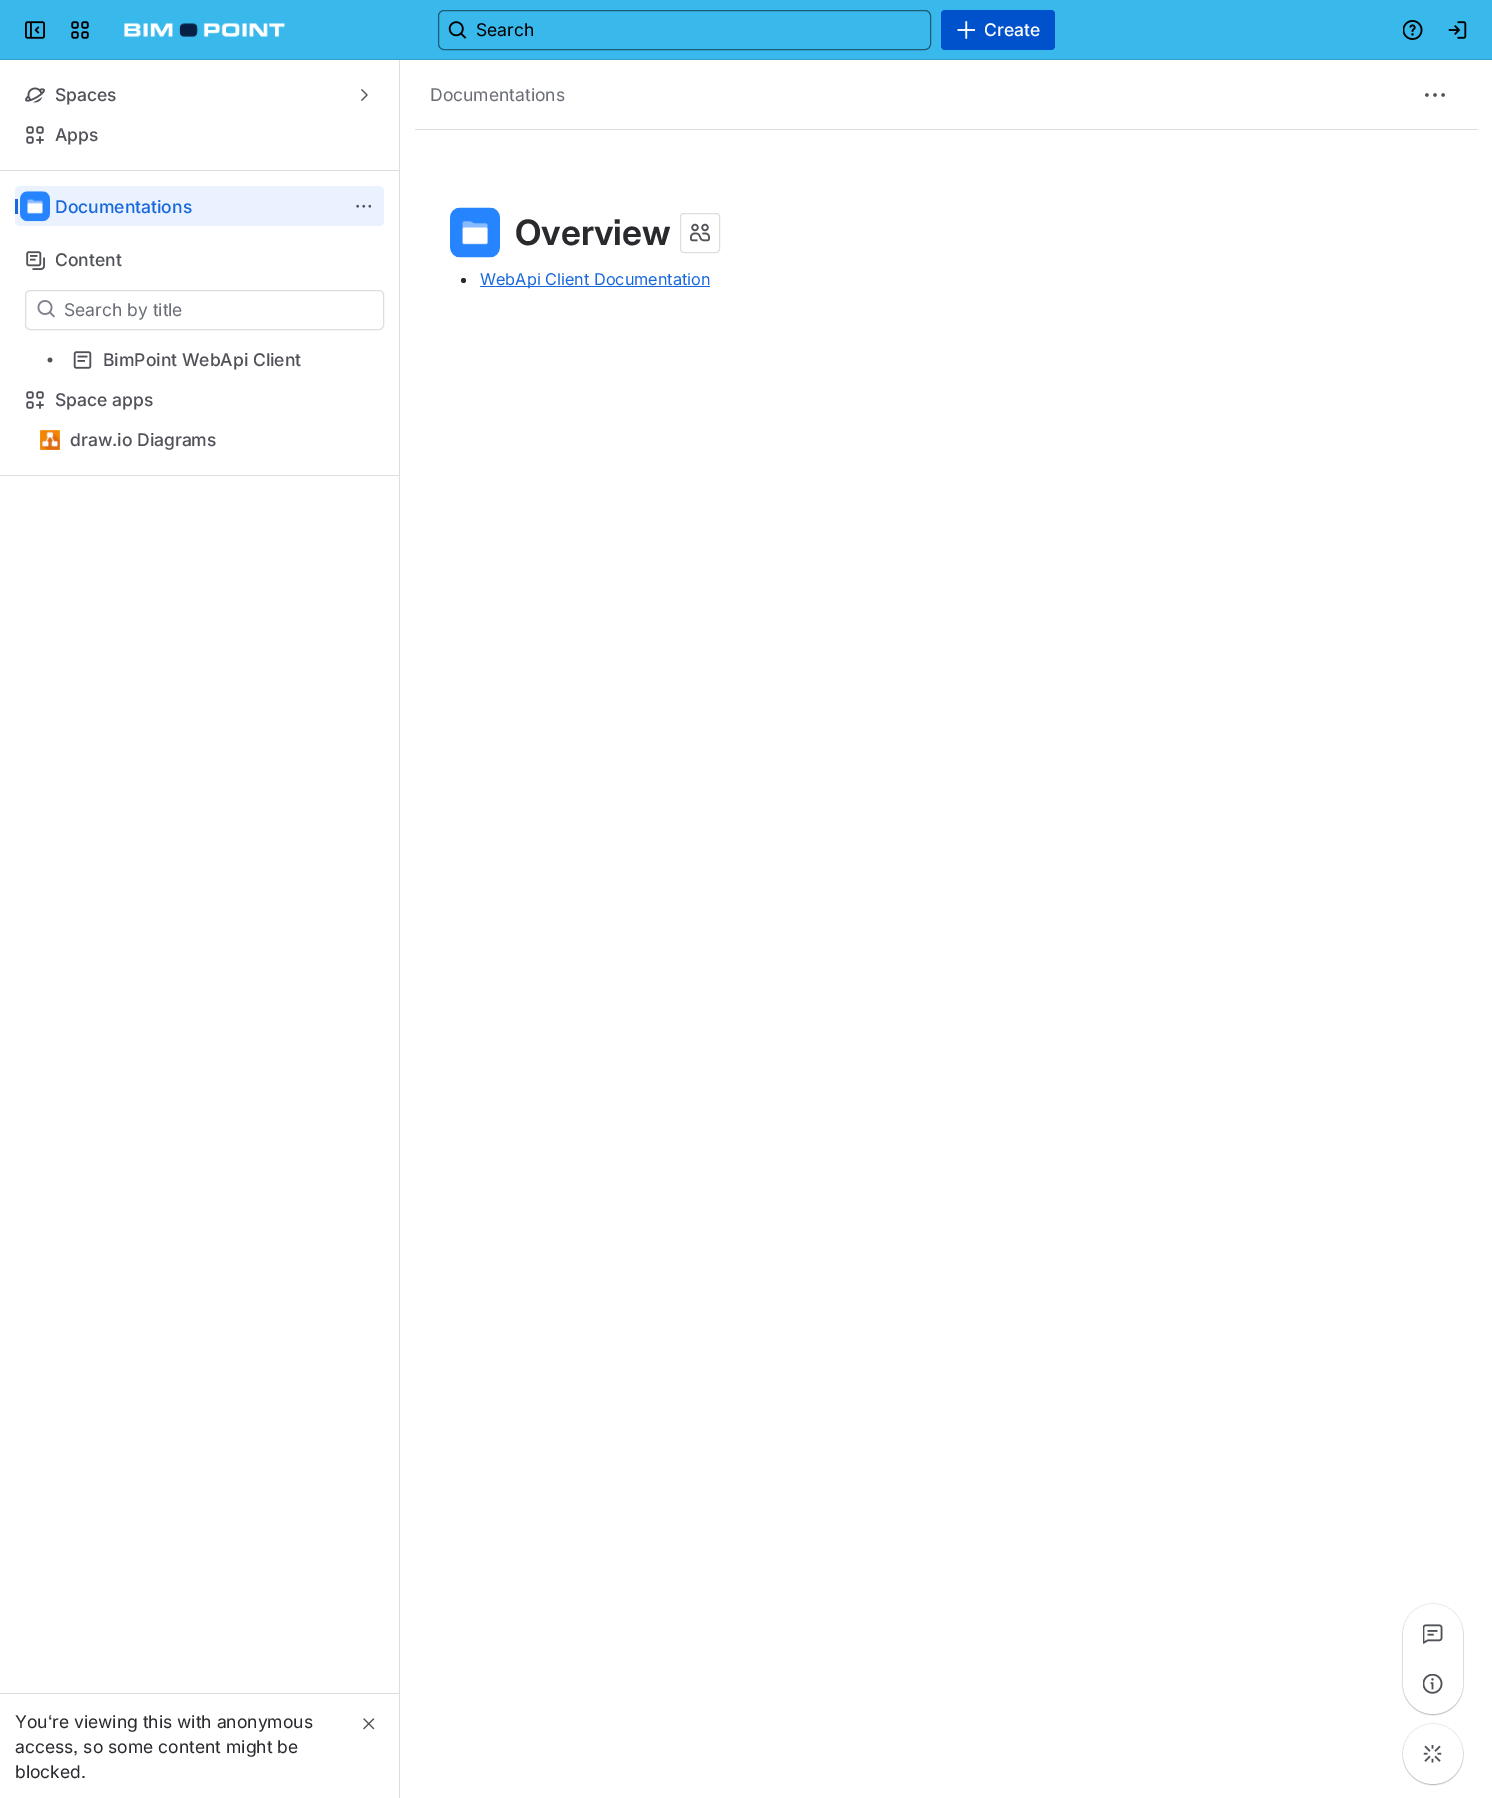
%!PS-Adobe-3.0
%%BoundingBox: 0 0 1492 1798
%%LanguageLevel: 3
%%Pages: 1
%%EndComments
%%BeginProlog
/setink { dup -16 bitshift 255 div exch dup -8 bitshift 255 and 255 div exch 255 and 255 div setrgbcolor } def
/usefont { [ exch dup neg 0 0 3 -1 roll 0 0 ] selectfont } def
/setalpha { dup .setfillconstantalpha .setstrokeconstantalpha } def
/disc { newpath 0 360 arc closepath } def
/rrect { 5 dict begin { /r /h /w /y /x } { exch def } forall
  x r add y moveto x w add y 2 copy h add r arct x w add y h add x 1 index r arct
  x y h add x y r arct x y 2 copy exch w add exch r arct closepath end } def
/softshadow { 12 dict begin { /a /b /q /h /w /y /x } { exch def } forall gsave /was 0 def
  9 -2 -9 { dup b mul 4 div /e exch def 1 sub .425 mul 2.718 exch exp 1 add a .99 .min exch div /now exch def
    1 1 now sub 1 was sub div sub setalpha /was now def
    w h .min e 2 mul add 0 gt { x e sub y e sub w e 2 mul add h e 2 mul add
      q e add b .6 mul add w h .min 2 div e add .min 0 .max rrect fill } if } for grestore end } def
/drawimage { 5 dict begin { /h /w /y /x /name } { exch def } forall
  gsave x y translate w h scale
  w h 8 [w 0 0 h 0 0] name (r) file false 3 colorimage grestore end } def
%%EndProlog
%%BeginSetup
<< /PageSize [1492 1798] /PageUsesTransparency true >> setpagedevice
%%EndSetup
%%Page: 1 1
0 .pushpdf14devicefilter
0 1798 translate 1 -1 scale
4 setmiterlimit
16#FFFFFF setink
0 0 1492 1798 rectfill
16#39B8EB setink
0 0 1492 59 rectfill
16#33A1CC setink
0 59 1492 1 rectfill
(img1.raw) 25 21 20 18 drawimage
(img2.raw) 71 21 18 18 drawimage
(img3.raw) 124 23 162 14 drawimage
16#1D5C76 setink
438.5 10.5 492 39 5.5 rrect stroke
(img4.raw) 448 21 19 18 drawimage
/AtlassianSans-Regular 17.5 usefont
16#000000 setink
476 36 moveto (Search) show
16#0052CC setink
941 10 114 40 4 rrect fill
(img5.raw) 957 21 18 18 drawimage
/AtlassianSans-Medium 17.5 usefont
16#FFFFFF setink
984 36 moveto (Create) show
(img6.raw) 1403 20 20 20 drawimage
(img7.raw) 1448 21 19 18 drawimage
16#DDDEDD setink
399 60 1 1738 rectfill
(img8.raw) 25 87 20 16 drawimage
16#505258 setink
55 101 moveto (Spaces) show
(img9.raw) 361 89 7 12 drawimage
(img10.raw) 26 126 18 18 drawimage
55 141 moveto (Apps) show
16#DDDEDD setink
0 170 399 1 rectfill
16#E9F2FE setink
15 186 369 40 5 rrect fill
(img11.raw) 20 191 30 31 drawimage
16#1868DB setink
15 199 3 15 rectfill
55 213 moveto (Documentations) show
(img12.raw) 356 204 15 4 drawimage
(img13.raw) 26 251 19 19 drawimage
16#505258 setink
55 266 moveto (Content) show
16#DDDEDD setink
25.5 290.5 358 39 4.5 rrect stroke
(img14.raw) 37 300 18 18 drawimage
/AtlassianSans-Regular 17.5 usefont
16#6B6E76 setink
64 316 moveto (Search by title) show
(img15.raw) 47 357 6 6 drawimage
(img16.raw) 73 351 19 18 drawimage
/AtlassianSans-Medium 17.5 usefont
16#505258 setink
103 366 moveto (BimPoint WebApi Client) show
(img10.raw) 26 391 18 18 drawimage
55 406 moveto (Space apps) show
(img17.raw) 40 430 20 20 drawimage
70 446 moveto (draw.io Diagrams) show
16#DDDEDD setink
0 475 399 1 rectfill
0 1693 399 1 rectfill
/AtlassianSans-Regular 17.5 usefont
16#292A2E setink
[
    [(You‘re viewing this with anonymous) 15 1728]
    [(access, so some content might be) 15 1753]
    [(blocked.) 15 1778]
] { aload pop moveto show } forall
(img18.raw) 363 1718 12 12 drawimage
16#DDDEDD setink
415 129 1063 1 rectfill
16#6B6E76 setink
430 101 moveto (Documentations) show
(img19.raw) 1425 93 20 4 drawimage
(img20.raw) 450 207 50 51 drawimage
/AtlassianSans-Bold 35 usefont
16#292A2E setink
515 245 moveto (Overview) show
16#DDDEDD setink
680.5 213.5 39 39 3.5 rrect stroke
(img21.raw) 690 223 20 19 drawimage
16#292A2E setink
463.5 280.5 2.5 disc fill
16#1868DB setink
480 286 230 1 rectfill
/AtlassianSans-Regular 16.25 usefont
480 285 moveto (WebApi Client Documentation) show
16#1E1F21 setink
1403 1604 60 110 30 0.5 0.31 softshadow
1403 1605 60 110 30 0.5 0.25 softshadow
16#FFFFFF setink
1403 1604 60 110 30 rrect fill
(img22.raw) 1423 1624 20 20 drawimage
(img23.raw) 1423 1674 20 20 drawimage
16#1E1F21 setink
1403 1724 60 60 30 0.5 0.31 softshadow
1403 1725 60 60 30 0.5 0.25 softshadow
16#FFFFFF setink
1433 1754 30 disc fill
(img24.raw) 1423 1745 19 18 drawimage
.poppdf14devicefilter showpage
%%EOF
